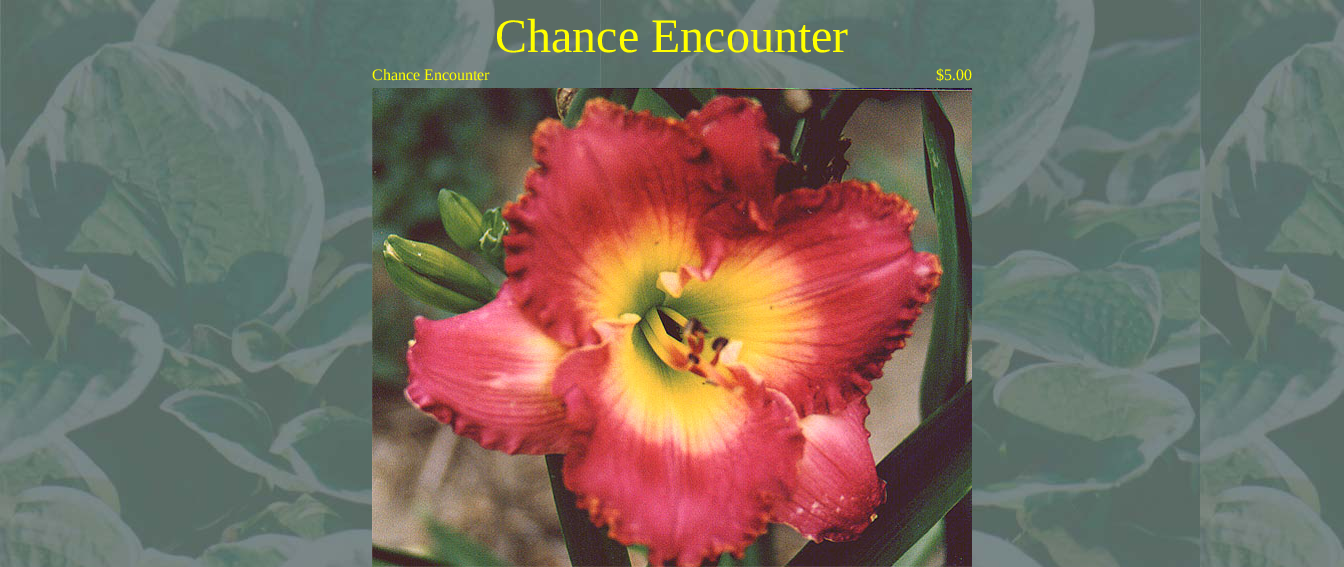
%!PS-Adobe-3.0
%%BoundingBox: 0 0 1344 567
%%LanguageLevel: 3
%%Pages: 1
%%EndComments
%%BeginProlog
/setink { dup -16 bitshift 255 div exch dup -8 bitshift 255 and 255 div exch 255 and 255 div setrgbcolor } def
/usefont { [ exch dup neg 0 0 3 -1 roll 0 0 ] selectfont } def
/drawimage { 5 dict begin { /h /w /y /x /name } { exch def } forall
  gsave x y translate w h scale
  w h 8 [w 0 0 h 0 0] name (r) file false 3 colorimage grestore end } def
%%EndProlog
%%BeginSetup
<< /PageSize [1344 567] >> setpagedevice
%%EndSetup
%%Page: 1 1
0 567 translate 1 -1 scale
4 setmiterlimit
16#FFFFFF setink
0 0 1344 567 rectfill
(img1.raw) 0 0 1344 567 drawimage
/LiberationSerif-Regular 48 usefont
16#FFFF00 setink
495 52 moveto (Chance Encounter) show
/LiberationSerif-Regular 16 usefont
372 80 moveto (Chance Encounter) show
936 80 moveto ($5.00) show
(img2.raw) 372 88 600 479 drawimage
showpage
%%EOF
